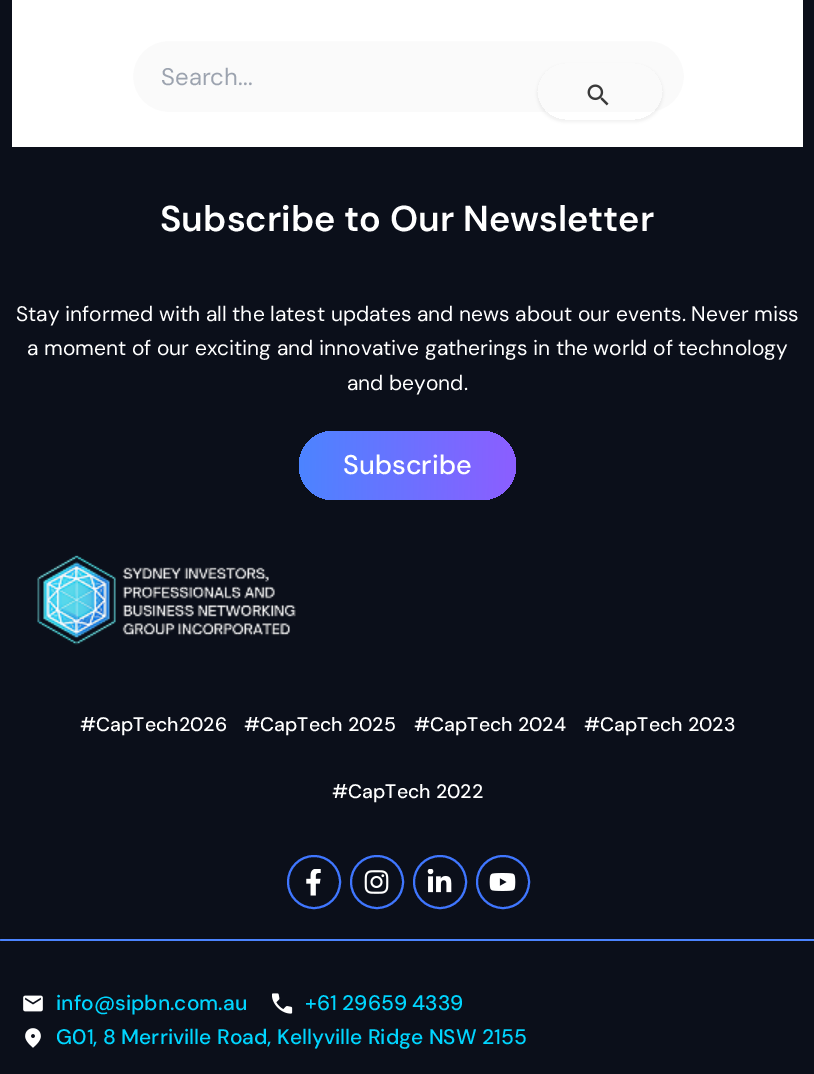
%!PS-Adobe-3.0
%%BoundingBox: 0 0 814 1074
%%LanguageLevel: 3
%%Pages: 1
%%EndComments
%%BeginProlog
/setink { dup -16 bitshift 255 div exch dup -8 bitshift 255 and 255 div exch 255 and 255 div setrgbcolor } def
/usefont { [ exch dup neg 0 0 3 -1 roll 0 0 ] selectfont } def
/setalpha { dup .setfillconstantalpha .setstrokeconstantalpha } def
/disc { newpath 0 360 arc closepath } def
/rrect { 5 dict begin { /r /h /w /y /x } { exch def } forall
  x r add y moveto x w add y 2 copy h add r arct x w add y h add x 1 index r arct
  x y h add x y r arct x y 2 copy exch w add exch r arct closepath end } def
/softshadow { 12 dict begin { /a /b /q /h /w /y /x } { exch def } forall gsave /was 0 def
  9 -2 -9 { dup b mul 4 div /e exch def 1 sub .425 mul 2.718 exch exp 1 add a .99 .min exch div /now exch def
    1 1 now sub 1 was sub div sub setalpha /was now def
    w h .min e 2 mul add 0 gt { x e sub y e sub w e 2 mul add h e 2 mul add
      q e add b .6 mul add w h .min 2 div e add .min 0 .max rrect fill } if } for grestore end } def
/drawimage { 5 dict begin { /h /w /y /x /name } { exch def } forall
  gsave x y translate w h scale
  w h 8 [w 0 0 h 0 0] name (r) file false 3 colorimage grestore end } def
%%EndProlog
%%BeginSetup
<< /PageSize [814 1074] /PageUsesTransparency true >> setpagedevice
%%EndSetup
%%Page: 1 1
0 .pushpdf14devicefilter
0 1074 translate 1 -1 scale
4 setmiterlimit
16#0B0F1A setink
0 0 814 1074 rectfill
16#FFFFFF setink
12 0 791 147 rectfill
16#FAFAFA setink
132 40 553 73 36.5 rrect gsave fill grestore
16#FFFFFF setink
2 setlinewidth
stroke
/DMSans-Regular 24 usefont
16#9CA3AF setink
161 85 moveto (Search...) show
gsave
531 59 moveto 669 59 lineto 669 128 lineto 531 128 lineto closepath 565.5 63 moveto 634.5 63 lineto 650 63 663 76 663 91.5 curveto 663 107 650 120 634.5 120 curveto 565.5 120 lineto 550 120 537 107 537 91.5 curveto 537 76 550 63 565.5 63 curveto closepath eoclip newpath
16#000000 setink
537 65 126 57 28.5 1.5 0.05 softshadow
grestore
(img1.raw) 587 84 22 22 drawimage
/DMSans-SemiBold 36 usefont
16#FFFFFF setink
160 231 moveto (Subscribe to Our Newsletter) show
/DMSans-Regular 21 usefont
[
    [(Stay informed with all the latest updates and news about our events. Never miss) 16 321]
    [(a moment of our exciting and innovative gatherings in the world of technology) 27 355]
    [(and beyond.) 347 390]
] { aload pop moveto show } forall
gsave 299 431 217 69 34.5 rrect clip newpath
<< /ShadingType 2 /ColorSpace /DeviceRGB /Coords [298 463 517 467] /Extend [true true] /Function << /FunctionType 2 /Domain [0 1] /C0 [0.298 0.518 1] /C1 [0.549 0.369 1] /N 1 >> >> shfill grestore
/DMSans-Medium 27 usefont
343 474 moveto (Subscribe) show
(img2.raw) 37 555 259 90 drawimage
/DMSans-Medium 19.5 usefont
[
    [(#CapTech2026) 80 731]
    [(#CapTech 2025) 244 731]
    [(#CapTech 2024) 414 731]
    [(#CapTech 2023) 584 731]
    [(#CapTech 2022) 332 798]
] { aload pop moveto show } forall
16#3F76FF setink
314 882 26 disc stroke
(img3.raw) 306 869 15 27 drawimage
377 882 26 disc stroke
(img4.raw) 364 870 25 24 drawimage
440 882 26 disc stroke
(img5.raw) 427 869 25 24 drawimage
503 882 26 disc stroke
(img6.raw) 489 873 27 18 drawimage
16#4C84FF setink
0 939 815 2 1 rrect fill
(img7.raw) 23 995 20 17 drawimage
/DMSans-Medium 21 usefont
16#00D5FF setink
56 1010 moveto (info@sipbn.com.au) show
(img8.raw) 272 993 21 21 drawimage
305 1010 moveto (+61 29659 4339) show
(img9.raw) 25 1028 16 20 drawimage
56 1044 moveto (G01, 8 Merriville Road, Kellyville Ridge NSW 2155) show
.poppdf14devicefilter showpage
%%EOF
